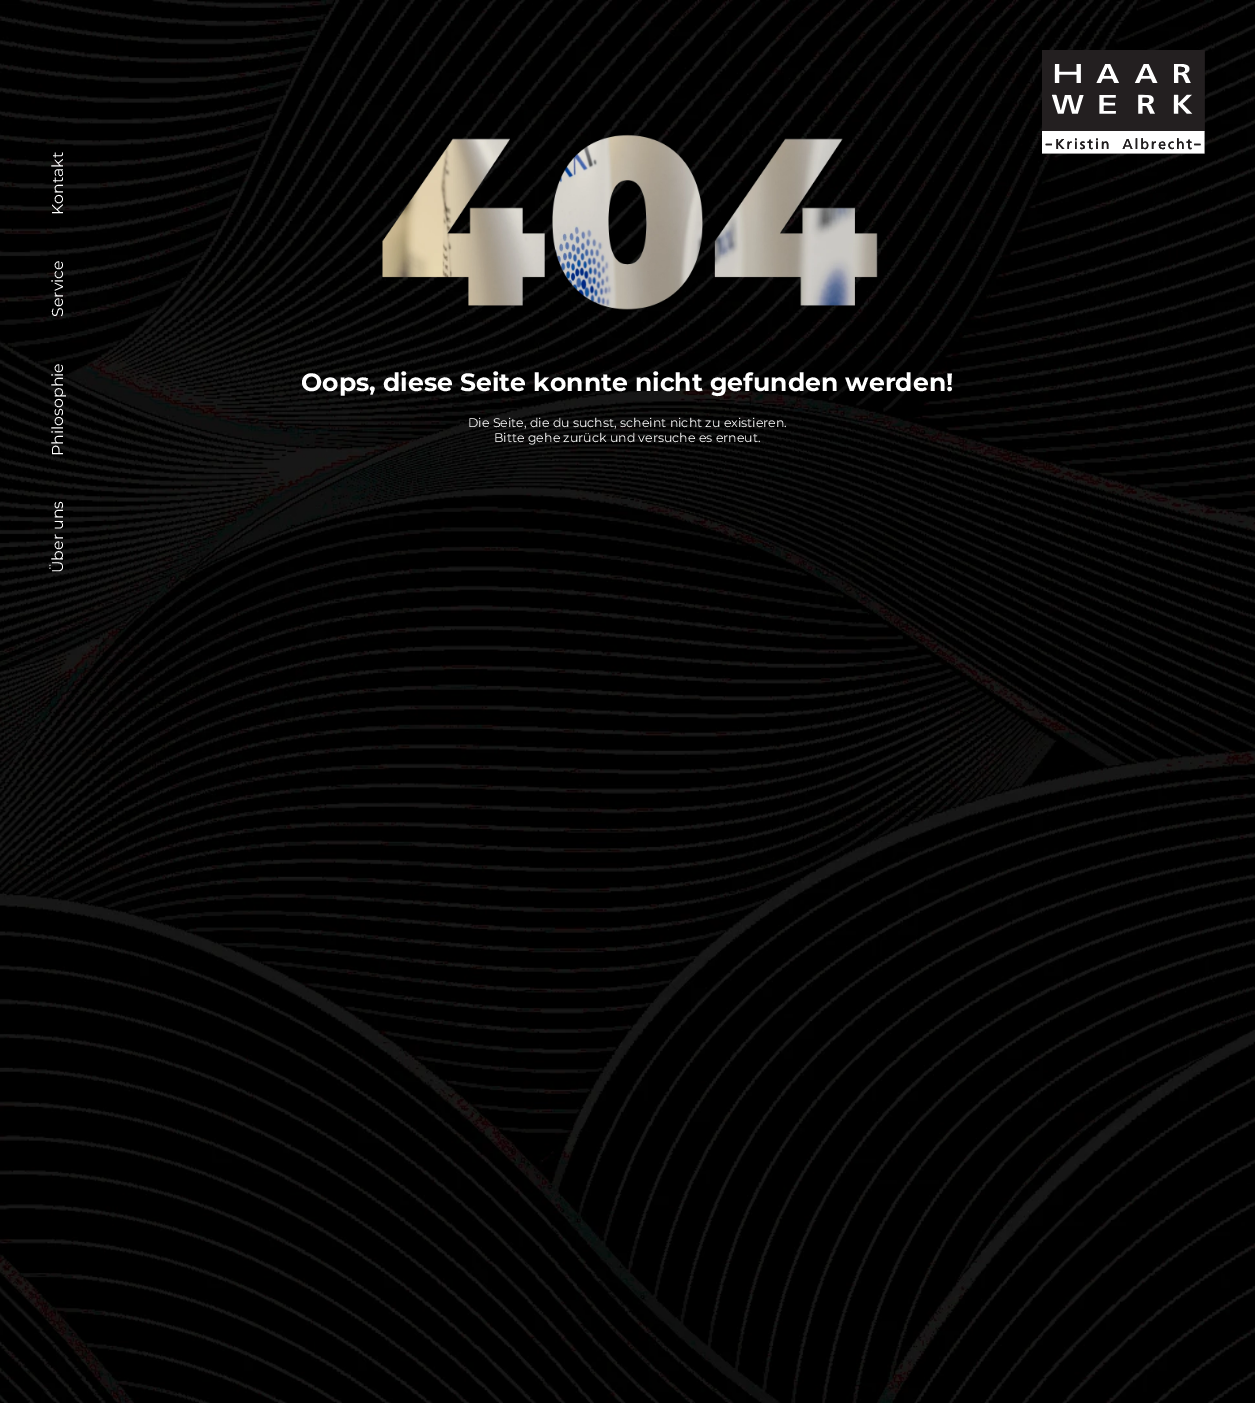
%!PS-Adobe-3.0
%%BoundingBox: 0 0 1255 1403
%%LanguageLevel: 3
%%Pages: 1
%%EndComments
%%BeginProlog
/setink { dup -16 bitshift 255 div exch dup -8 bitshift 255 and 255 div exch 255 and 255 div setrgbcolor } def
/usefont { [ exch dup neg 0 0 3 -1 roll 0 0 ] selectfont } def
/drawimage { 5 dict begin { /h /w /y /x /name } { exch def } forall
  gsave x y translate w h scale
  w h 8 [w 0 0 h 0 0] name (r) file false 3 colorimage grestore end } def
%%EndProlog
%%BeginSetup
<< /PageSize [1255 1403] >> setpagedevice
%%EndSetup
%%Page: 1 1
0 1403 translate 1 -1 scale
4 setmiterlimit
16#FFFFFF setink
0 0 1255 1403 rectfill
(img1.raw) 0 0 1255 1403 drawimage
/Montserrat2-Thin 15.75 usefont
gsave 63 215 translate -90 rotate 0 0 moveto (Kontakt) show grestore
gsave 63 317 translate -90 rotate 0 0 moveto (Service) show grestore
gsave 63 456 translate -90 rotate 0 0 moveto (Philosophie) show grestore
gsave 63 573 translate -90 rotate 0 0 moveto (Über uns) show grestore
(img2.raw) 1042 50 163 104 drawimage
(img3.raw) 382 134 496 176 drawimage
/Montserrat-Thin 25.1 usefont
301 391 moveto (Oops, diese Seite konnte nicht gefunden werden!) show
/Montserrat2-Thin 12.55 usefont
468 427 moveto (Die Seite, die du suchst, scheint nicht zu existieren.) show
494 442 moveto (Bitte gehe zurück und versuche es erneut.) show
showpage
%%EOF
